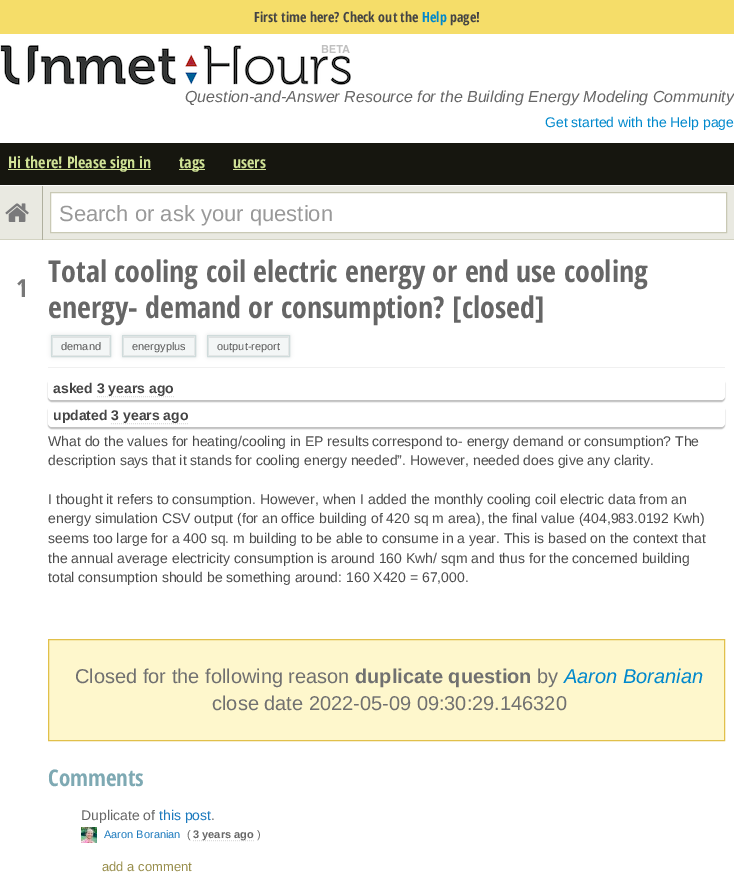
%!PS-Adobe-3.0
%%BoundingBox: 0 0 734 886
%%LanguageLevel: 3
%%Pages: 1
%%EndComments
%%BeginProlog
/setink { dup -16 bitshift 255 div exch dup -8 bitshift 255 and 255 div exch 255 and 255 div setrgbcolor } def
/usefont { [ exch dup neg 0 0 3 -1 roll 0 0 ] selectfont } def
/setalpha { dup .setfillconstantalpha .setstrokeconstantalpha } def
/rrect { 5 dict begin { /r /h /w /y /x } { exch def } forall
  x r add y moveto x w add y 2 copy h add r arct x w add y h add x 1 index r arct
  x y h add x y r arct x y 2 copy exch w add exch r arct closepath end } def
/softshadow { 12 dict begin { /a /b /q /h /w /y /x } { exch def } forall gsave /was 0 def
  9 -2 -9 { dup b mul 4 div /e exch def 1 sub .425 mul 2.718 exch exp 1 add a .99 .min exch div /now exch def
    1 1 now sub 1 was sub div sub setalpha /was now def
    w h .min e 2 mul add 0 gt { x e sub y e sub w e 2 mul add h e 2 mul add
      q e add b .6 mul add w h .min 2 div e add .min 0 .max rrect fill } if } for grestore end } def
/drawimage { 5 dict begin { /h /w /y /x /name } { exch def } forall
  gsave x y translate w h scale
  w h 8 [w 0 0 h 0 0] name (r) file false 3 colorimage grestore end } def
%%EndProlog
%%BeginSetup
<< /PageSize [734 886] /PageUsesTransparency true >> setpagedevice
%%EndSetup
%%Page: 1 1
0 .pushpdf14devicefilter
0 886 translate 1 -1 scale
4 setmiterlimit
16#FFFFFF setink
0 0 734 886 rectfill
16#F5DD69 setink
0 0 734 34 rectfill
/OpenSansCondensed-Bold 14 usefont
16#444444 setink
254 22 moveto (First time here? Check out the) show
16#0088CC setink
422 22 moveto (Help) show
16#444444 setink
450 22 moveto (page!) show
(img1.raw) 0 45 351 40 drawimage
/LiberationSans-Italic 16 usefont
16#666666 setink
185 102 moveto (Question-and-Answer Resource for the Building Energy Modeling Community) show
/LiberationSans-Regular 14 usefont
16#0088CC setink
545 127 moveto (Get started with the Help page) show
16#16160F setink
0 143 734 42 rectfill
16#D0E296 setink
8 169 143 1 rectfill
/OpenSansCondensed-Bold 16 usefont
8 168 moveto (Hi there! Please sign in) show
179 169 26 1 rectfill
179 168 moveto (tags) show
233 168 moveto (users) show
[
    [233 169 33 1 16#D0E296]
    [0 186 734 53 16#E9E9E1]
    [0 185 734 1 16#FCFCFC]
    [0 239 734 1 16#D3D3C2]
    [42 186 1 54 16#AFAF9E]
] { aload pop setink rectfill } forall
(img2.raw) 5 203 24 19 drawimage
16#FFFFFF setink
50.5 192.5 moveto 726.5 192.5 lineto 726.5 232.5 lineto 50.5 232.5 lineto closepath gsave fill grestore
16#C9C9B5 setink
stroke
/LiberationSans-Regular 22 usefont
16#999999 setink
59 221 moveto (Search or ask your question) show
/OpenSansCondensed-Bold 25 usefont
16#777777 setink
16 297 moveto (1) show
/OpenSansCondensed-Bold 30 usefont
16#666666 setink
48 282 moveto (Total cooling coil electric energy or end use cooling) show
48 318 moveto (energy- demand or consumption? [closed]) show
16#D3D6D7 setink
52 336 58 20 0 2.5 1 softshadow
16#F3F6F6 setink
53 338 56 17 rectfill
16#CFDBDB setink
51.5 335.5 59 21 rectstroke
/LiberationSans-Regular 11 usefont
16#585858 setink
61 350 moveto (demand) show
16#D3D6D7 setink
123 336 72 20 0 2.5 1 softshadow
16#F3F6F6 setink
124 338 70 17 rectfill
16#CFDBDB setink
122.5 335.5 73 21 rectstroke
16#585858 setink
132 350 moveto (energyplus) show
16#D3D6D7 setink
208 336 81 20 0 2.5 1 softshadow
16#F3F6F6 setink
209 338 79 17 rectfill
16#CFDBDB setink
207.5 335.5 82 21 rectstroke
16#585858 setink
217 350 moveto (output-report) show
16#F0F0F0 setink
48 367 677 1 rectfill
16#BFBFBF setink
48 380 677 22 4 0.5 1 softshadow
16#FFFFFF setink
48 378 677 22 4 rrect fill
/LiberationSans-Bold 14 usefont
16#444444 setink
53 393 moveto (asked 3 years ago) show
16#DDDDDD setink
[1 1] 0 setdash
97 396.5 moveto 174 396.5 lineto stroke
16#BFBFBF setink
48 407 677 22 4 0.5 1 softshadow
16#FFFFFF setink
48 405 677 22 4 rrect fill
16#444444 setink
53 420 moveto (updated 3 years ago) show
16#DDDDDD setink
111 423.5 moveto 188 423.5 lineto stroke
/LiberationSans-Regular 14 usefont
16#4B4B4B setink
[
    [(What do the values for heating/cooling in EP results correspond to- energy demand or consumption? The) 48 446]
    [(description says that it stands for cooling energy needed”. However, needed does give any clarity.) 48 465]
    [(I thought it refers to consumption. However, when I added the monthly cooling coil electric data from an) 48 504]
    [(energy simulation CSV output \(for an office building of 420 sq m area\), the final value \(404,983.0192 Kwh\)) 48 523]
    [(seems too large for a 400 sq. m building to be able to consume in a year. This is based on the context that) 48 543]
    [(the annual average electricity consumption is around 160 Kwh/ sqm and thus for the concerned building) 48 563]
    [(total consumption should be something around: 160 X420 = 67,000.) 48 582]
] { aload pop moveto show } forall
16#FEF7CC setink
48.5 639.5 moveto 724.5 639.5 lineto 724.5 740.5 lineto 48.5 740.5 lineto closepath gsave fill grestore
16#E1C04A setink
[] 0 setdash
stroke
/LiberationSans-Regular 20 usefont
16#707070 setink
75 683 moveto (Closed for the following reason) show
/LiberationSans-Bold 20 usefont
355 683 moveto (duplicate question) show
/LiberationSans-Regular 20 usefont
537 683 moveto (by) show
/LiberationSans-Italic 20 usefont
16#0088CC setink
564 683 moveto (Aaron Boranian) show
/LiberationSans-Regular 20 usefont
16#707070 setink
212 710 moveto (close date 2022-05-09 09:30:29.146320) show
/OpenSansCondensed-Bold 23 usefont
16#7EA9B3 setink
48 786 moveto (Comments) show
/LiberationSans-Regular 14 usefont
16#666666 setink
81 820 moveto (Duplicate of) show
16#1B79BD setink
159 820 moveto (this post) show
16#666666 setink
211 820 moveto (.) show
(img3.raw) 81 827 16 16 drawimage
/LiberationSans-Regular 11 usefont
16#1B79BD setink
104 838 moveto (Aaron Boranian) show
16#666666 setink
187 838 moveto (\() show
16#DDDDDD setink
[1 1] 0 setdash
193 840.5 moveto 254 840.5 lineto stroke
/LiberationSans-Bold 11 usefont
16#666666 setink
193 838 moveto (3 years ago) show
/LiberationSans-Regular 11 usefont
257 838 moveto (\)) show
/LiberationSans-Regular 13 usefont
16#988E4C setink
102 871 moveto (add a comment) show
.poppdf14devicefilter showpage
%%EOF
